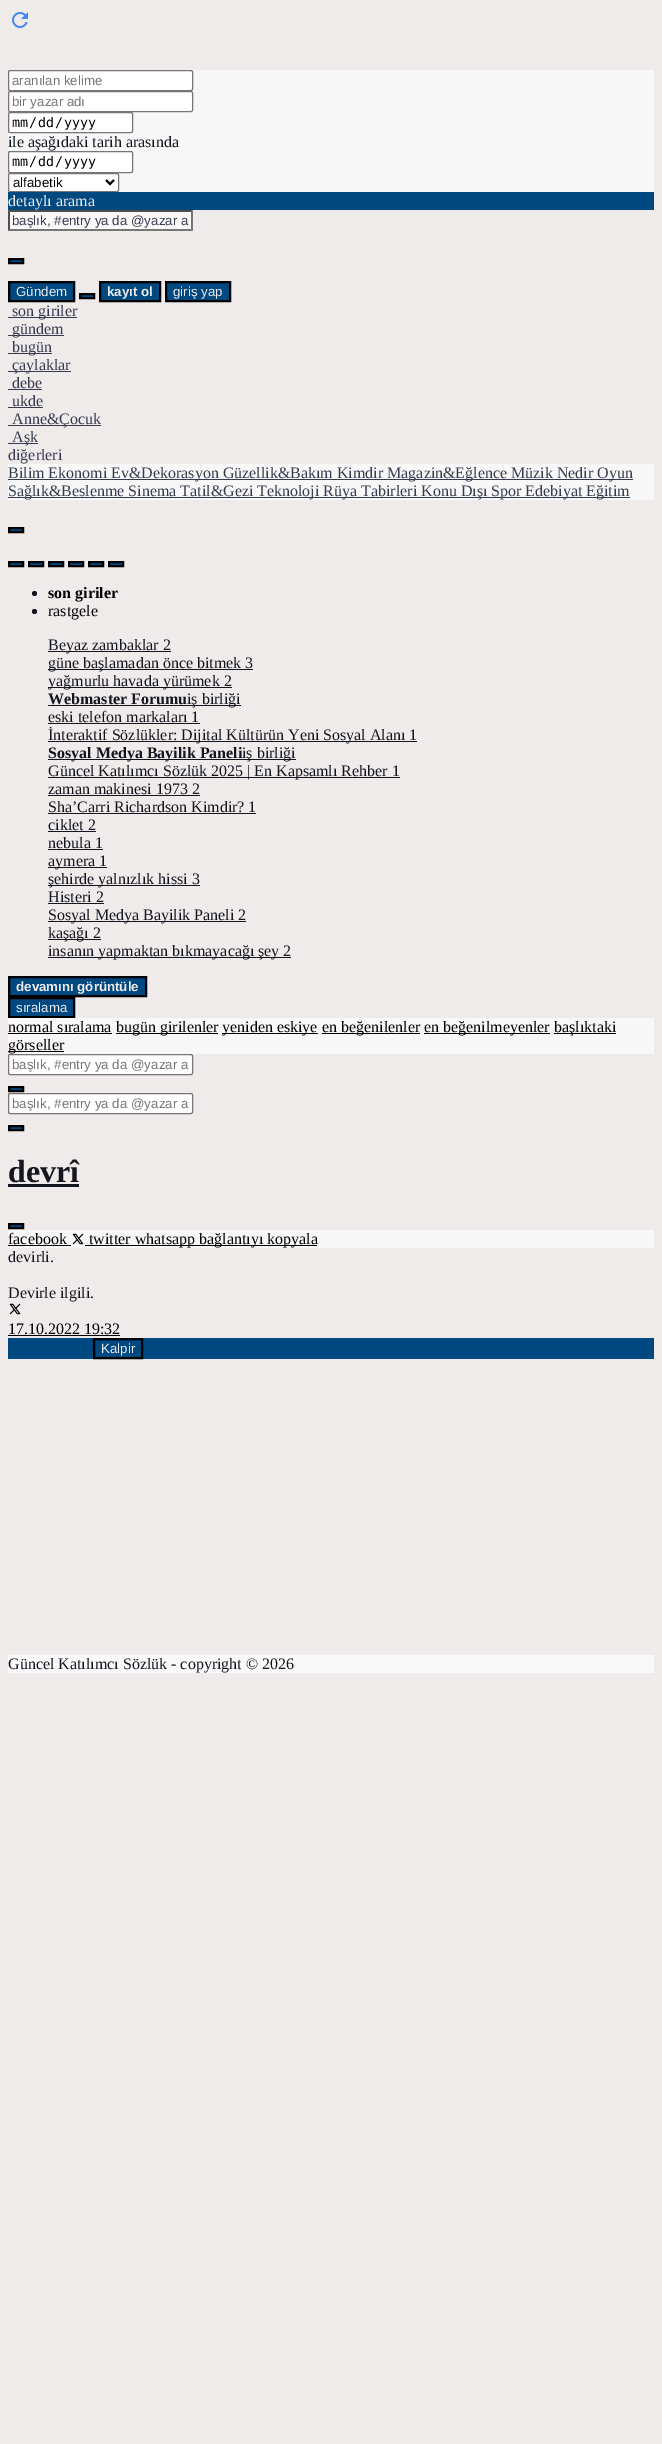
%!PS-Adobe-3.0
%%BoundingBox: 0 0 662 2444
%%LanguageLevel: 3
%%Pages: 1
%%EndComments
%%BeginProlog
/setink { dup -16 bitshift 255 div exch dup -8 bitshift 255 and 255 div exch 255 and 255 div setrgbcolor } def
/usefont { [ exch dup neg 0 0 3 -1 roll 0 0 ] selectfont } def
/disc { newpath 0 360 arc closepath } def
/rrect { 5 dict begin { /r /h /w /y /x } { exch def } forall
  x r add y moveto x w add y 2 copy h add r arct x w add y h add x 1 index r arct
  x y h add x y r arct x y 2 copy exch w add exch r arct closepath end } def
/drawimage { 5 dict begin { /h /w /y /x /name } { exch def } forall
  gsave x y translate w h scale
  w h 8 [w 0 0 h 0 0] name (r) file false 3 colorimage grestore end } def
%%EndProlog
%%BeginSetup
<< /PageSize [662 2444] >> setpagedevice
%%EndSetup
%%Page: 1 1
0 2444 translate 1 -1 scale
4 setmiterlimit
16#EFEBEB setink
0 0 662 2444 rectfill
(img1.raw) 12 12 16 16 drawimage
16#F7F7F7 setink
8 70 646 122 rectfill
16#FFFFFF setink
8.5 70.5 184 20 1.5 rrect gsave fill grestore
16#767676 setink
stroke
/LiberationSans-Regular 13.3 usefont
16#757575 setink
12 85 moveto (aranılan kelime) show
16#FFFFFF setink
8.5 91.5 184 20 1.5 rrect gsave fill grestore
16#767676 setink
stroke
16#757575 setink
12 106 moveto (bir yazar adı) show
16#FFFFFF setink
8.5 112.5 124 20 1.5 rrect gsave fill grestore
16#767676 setink
stroke
/DejaVuSansMono-Regular 13.3 usefont
16#000000 setink
[
    [(mm) 12 127]
    [(/) 29 127]
    [(dd) 38 127]
    [(/) 55 127]
    [(yyyy) 64 127]
] { aload pop moveto show } forall
/LiberationSerif-Regular 16 usefont
16#14151F setink
8 147 moveto (ile aşağıdaki tarih arasında) show
16#FFFFFF setink
8.5 151.5 124 21 1.5 rrect gsave fill grestore
16#767676 setink
stroke
/DejaVuSansMono-Regular 13.3 usefont
16#000000 setink
[
    [(mm) 12 166]
    [(/) 29 166]
    [(dd) 38 166]
    [(/) 55 166]
    [(yyyy) 64 166]
] { aload pop moveto show } forall
16#FFFFFF setink
8.5 173.5 110 18 1.5 rrect gsave fill grestore
16#767676 setink
stroke
16#000000 setink
2 setlinewidth
106 180 moveto 110 184 lineto 114 180 lineto stroke
/LiberationSans-Regular 13.3 usefont
13 187 moveto (alfabetik) show
16#004880 setink
8 192 646 18 rectfill
/LiberationSerif-Regular 16 usefont
16#EFEBEB setink
8 206 moveto (detaylı arama) show
16#FAF9F9 setink
8 210 185 21 rectfill
16#4F4F4F setink
8 210 moveto 193 210 lineto 191 212 lineto 10 212 lineto closepath fill
16#767676 setink
193 210 moveto 193 231 lineto 191 229 lineto 191 212 lineto closepath fill
193 231 moveto 8 231 lineto 10 229 lineto 191 229 lineto closepath fill
16#4F4F4F setink
8 231 moveto 8 210 lineto 10 212 lineto 10 229 lineto closepath fill
/LiberationSans-Regular 13.3 usefont
16#383B50 setink
12 225 moveto (başlık, #entry ya da @yazar a) show
16#004880 setink
9 259 moveto 23 259 lineto 23 263 lineto 9 263 lineto closepath gsave fill grestore
16#000000 setink
stroke
16#004880 setink
9 282 moveto 74 282 lineto 74 301 lineto 9 301 lineto closepath gsave fill grestore
16#000000 setink
stroke
16#EFEBEB setink
16 296 moveto (Gündem) show
16#004880 setink
80 294 moveto 94 294 lineto 94 298 lineto 80 298 lineto closepath gsave fill grestore
16#000000 setink
stroke
16#004880 setink
100 282 moveto 160 282 lineto 160 301 lineto 100 301 lineto closepath gsave fill grestore
16#000000 setink
stroke
/LiberationSans-Bold 13.3 usefont
16#EFEBEB setink
107 296 moveto (kayıt ol) show
16#004880 setink
166 282 moveto 230 282 lineto 230 301 lineto 166 301 lineto closepath gsave fill grestore
16#000000 setink
stroke
/LiberationSans-Regular 13.3 usefont
16#EFEBEB setink
173 296 moveto (giriş yap) show
16#383B50 setink
8 317 69 1 rectfill
/LiberationSerif-Regular 16 usefont
12 316 moveto (son giriler) show
8 335 56 1 rectfill
12 334 moveto (gündem) show
8 353 44 1 rectfill
12 352 moveto (bugün) show
8 371 63 1 rectfill
12 370 moveto (çaylaklar) show
12 388 moveto (debe) show
8 389 34 1 rectfill
12 406 moveto (ukde) show
8 407 35 1 rectfill
8 425 93 1 rectfill
12 424 moveto (Anne&Çocuk) show
8 443 30 1 rectfill
12 442 moveto (Aşk) show
8 460 moveto (diğerleri) show
16#F7F7F7 setink
8 464 646 36 rectfill
16#383B50 setink
8 479 585 1 rectfill
8 478 moveto (Bilim Ekonomi Ev&Dekorasyon Güzellik&Bakım Kimdir Magazin&Eğlence Müzik Nedir) show
593 479 40 1 rectfill
597 478 moveto (Oyun) show
8 497 168 1 rectfill
8 496 moveto (Sağlık&Beslenme Sinema Tatil&Gezi) show
176 497 454 1 rectfill
257 496 moveto (Teknoloji Rüya Tabirleri Konu Dışı Spor Edebiyat Eğitim) show
16#004880 setink
9 528 moveto 23 528 lineto 23 532 lineto 9 532 lineto closepath gsave fill grestore
16#000000 setink
stroke
16#004880 setink
9 562 moveto 23 562 lineto 23 566 lineto 9 566 lineto closepath gsave fill grestore
16#000000 setink
stroke
16#004880 setink
29 562 moveto 43 562 lineto 43 566 lineto 29 566 lineto closepath gsave fill grestore
16#000000 setink
stroke
16#004880 setink
49 562 moveto 63 562 lineto 63 566 lineto 49 566 lineto closepath gsave fill grestore
16#000000 setink
stroke
16#004880 setink
69 562 moveto 83 562 lineto 83 566 lineto 69 566 lineto closepath gsave fill grestore
16#000000 setink
stroke
16#004880 setink
89 562 moveto 103 562 lineto 103 566 lineto 89 566 lineto closepath gsave fill grestore
16#000000 setink
stroke
16#004880 setink
109 562 moveto 123 562 lineto 123 566 lineto 109 566 lineto closepath gsave fill grestore
16#000000 setink
stroke
16#14151F setink
34.5 593.5 2.5 disc fill
/LiberationSerif-Bold 16 usefont
16#000000 setink
48 598 moveto (son giriler) show
16#14151F setink
34.5 611.5 2.5 disc fill
/LiberationSerif-Regular 16 usefont
16#000000 setink
48 616 moveto (rastgele) show
16#14151F setink
48 651 123 1 rectfill
48 650 moveto (Beyaz zambaklar 2) show
48 669 205 1 rectfill
48 668 moveto (güne başlamadan önce bitmek 3) show
48 687 184 1 rectfill
48 686 moveto (yağmurlu havada yürümek 2) show
/LiberationSerif-Bold 16 usefont
48 704 moveto (Webmaster Forumu) show
48 705 193 1 rectfill
/LiberationSerif-Regular 16 usefont
187 704 moveto (iş birliği) show
48 722 moveto (eski telefon markaları 1) show
48 723 152 1 rectfill
48 741 369 1 rectfill
48 740 moveto (İnteraktif Sözlükler: Dijital Kültürün Yeni Sosyal Alanı 1) show
48 759 194 1 rectfill
/LiberationSerif-Bold 16 usefont
48 758 moveto (Sosyal Medya Bayilik Paneli) show
242 759 54 1 rectfill
/LiberationSerif-Regular 16 usefont
242 758 moveto (iş birliği) show
48 777 352 1 rectfill
48 776 moveto (Güncel Katılımcı Sözlük 2025 | En Kapsamlı Rehber 1) show
48 794 moveto (zaman makinesi 1973 2) show
48 795 152 1 rectfill
48 812 moveto (Sha’Carri Richardson Kimdir? 1) show
48 813 208 1 rectfill
48 830 moveto (ciklet 2) show
48 831 48 1 rectfill
48 848 moveto (nebula 1) show
48 849 55 1 rectfill
48 867 59 1 rectfill
48 866 moveto (aymera 1) show
48 885 152 1 rectfill
48 884 moveto (şehirde yalnızlık hissi 3) show
48 902 moveto (Histeri 2) show
48 903 56 1 rectfill
48 921 198 1 rectfill
48 920 moveto (Sosyal Medya Bayilik Paneli 2) show
48 939 53 1 rectfill
48 938 moveto (kaşağı 2) show
48 957 243 1 rectfill
48 956 moveto (insanın yapmaktan bıkmayacağı şey 2) show
16#004880 setink
9 977 moveto 146 977 lineto 146 996 lineto 9 996 lineto closepath gsave fill grestore
16#000000 setink
stroke
/LiberationSans-Bold 13.3 usefont
16#EFEBEB setink
16 991 moveto (devamını görüntüle) show
16#004880 setink
9 998 moveto 74 998 lineto 74 1017 lineto 9 1017 lineto closepath gsave fill grestore
16#000000 setink
stroke
/LiberationSans-Regular 13.3 usefont
16#EFEBEB setink
16 1012 moveto (sıralama) show
16#F7F7F7 setink
8 1018 646 36 rectfill
/LiberationSerif-Regular 16 usefont
16#000000 setink
8 1032 moveto (normal sıralama) show
8 1033 104 1 rectfill
116 1033 102 1 rectfill
116 1032 moveto (bugün girilenler) show
222 1033 96 1 rectfill
222 1032 moveto (yeniden eskiye) show
322 1033 98 1 rectfill
322 1032 moveto (en beğenilenler) show
424 1033 126 1 rectfill
424 1032 moveto (en beğenilmeyenler) show
554 1033 62 1 rectfill
554 1032 moveto (başlıktaki) show
8 1051 56 1 rectfill
8 1050 moveto (görseller) show
16#FFFFFF setink
8.5 1054.5 184 20 1.5 rrect gsave fill grestore
16#767676 setink
1 setlinewidth
stroke
/LiberationSans-Regular 13.3 usefont
16#757575 setink
12 1069 moveto (başlık, #entry ya da @yazar a) show
16#004880 setink
9 1087 moveto 23 1087 lineto 23 1091 lineto 9 1091 lineto closepath gsave fill grestore
16#000000 setink
2 setlinewidth
stroke
16#FFFFFF setink
8.5 1093.5 184 20 1.5 rrect gsave fill grestore
16#767676 setink
1 setlinewidth
stroke
16#757575 setink
12 1108 moveto (başlık, #entry ya da @yazar a) show
16#004880 setink
9 1126 moveto 23 1126 lineto 23 1130 lineto 9 1130 lineto closepath gsave fill grestore
16#000000 setink
2 setlinewidth
stroke
/LiberationSerif-Bold 32 usefont
16#14151F setink
8 1182 moveto (devrî) show
8 1184 71 3 rectfill
16#004880 setink
9 1224 moveto 23 1224 lineto 23 1228 lineto 9 1228 lineto closepath gsave fill grestore
16#000000 setink
stroke
16#F7F7F7 setink
8 1230 646 18 rectfill
/LiberationSerif-Regular 16 usefont
16#000000 setink
8 1244 moveto (facebook) show
8 1245 63 1 rectfill
(img2.raw) 72 1233 12 12 drawimage
85 1245 232 1 rectfill
89 1244 moveto (twitter whatsapp bağlantıyı kopyala) show
16#14151F setink
8 1262 moveto (devirli.) show
8 1298 moveto (Devirle ilgili.) show
(img3.raw) 9 1303 12 12 drawimage
16#000000 setink
8 1334 moveto (17.10.2022 19:32) show
8 1335 112 1 rectfill
16#004880 setink
8 1338 646 21 rectfill
16#000000 setink
94 1339 48 19 rectstroke
/LiberationSans-Regular 13.3 usefont
16#EFEBEB setink
101 1353 moveto (Kalpir) show
16#FAF9F9 setink
8 1655 646 18 rectfill
/LiberationSerif-Regular 16 usefont
16#14151F setink
8 1669 moveto (Güncel Katılımcı Sözlük - copyright © 2026) show
showpage
%%EOF
